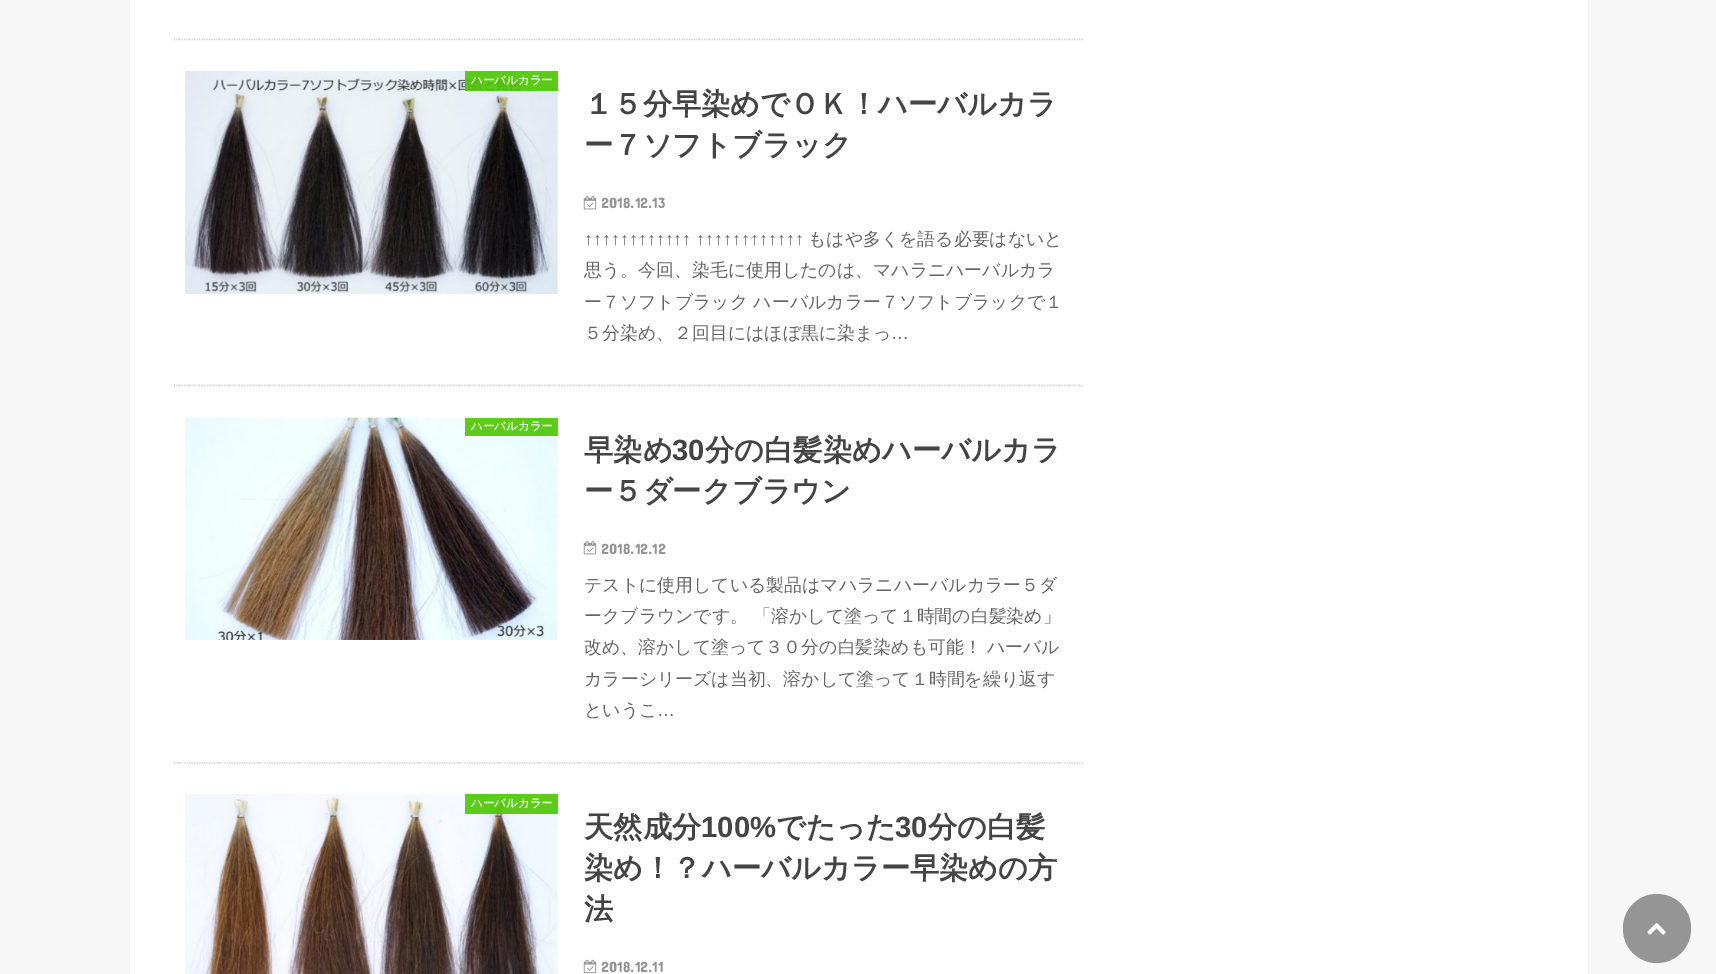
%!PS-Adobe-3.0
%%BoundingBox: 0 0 1716 974
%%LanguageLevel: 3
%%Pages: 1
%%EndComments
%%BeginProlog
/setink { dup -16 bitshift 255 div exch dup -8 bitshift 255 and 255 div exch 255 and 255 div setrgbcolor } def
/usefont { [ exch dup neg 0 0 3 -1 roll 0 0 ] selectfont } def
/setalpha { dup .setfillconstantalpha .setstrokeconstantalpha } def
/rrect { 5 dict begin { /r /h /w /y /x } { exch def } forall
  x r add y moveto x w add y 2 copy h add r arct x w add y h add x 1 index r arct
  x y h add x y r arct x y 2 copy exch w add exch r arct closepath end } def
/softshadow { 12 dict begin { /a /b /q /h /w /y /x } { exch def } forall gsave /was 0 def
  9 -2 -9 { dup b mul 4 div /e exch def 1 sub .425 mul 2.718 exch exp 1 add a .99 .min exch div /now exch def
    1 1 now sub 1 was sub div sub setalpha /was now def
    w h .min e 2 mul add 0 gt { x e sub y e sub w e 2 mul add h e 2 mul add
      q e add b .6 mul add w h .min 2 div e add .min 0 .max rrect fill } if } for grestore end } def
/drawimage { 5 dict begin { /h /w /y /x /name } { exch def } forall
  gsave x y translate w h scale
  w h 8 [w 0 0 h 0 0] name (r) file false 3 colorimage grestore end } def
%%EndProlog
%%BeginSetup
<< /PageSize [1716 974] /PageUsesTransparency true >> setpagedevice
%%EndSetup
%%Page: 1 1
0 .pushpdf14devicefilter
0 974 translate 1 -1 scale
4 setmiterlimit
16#F7F7F7 setink
0 0 1716 974 rectfill
16#DDDDDD setink
130 -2 1458 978 0 0.5 1 softshadow
16#FFFFFF setink
130 0 1458 974 rectfill
16#CCCCCC setink
1.2 setlinewidth
[1.25 1.25] 0 setdash
174 39.5 moveto 1084 39.5 lineto stroke
174 385.5 moveto 1084 385.5 lineto stroke
(img1.raw) 185 71 373 223 drawimage
0.9 setalpha
16#4CC600 setink
465 71 93 20 rectfill
/WenQuanYiZenHei-Bold 11.5 usefont
1 setalpha
16#EEF9E8 setink
471 84 moveto (ハーバルカラー) show
/WenQuanYiZenHei-Bold 29.25 usefont
16#444444 setink
584 114 moveto (１５分早染めでＯＫ！ハーバルカラ) show
584 155 moveto (ー７ソフトブラック) show
(img2.raw) 583 196 14 14 drawimage
/ConcertOne-Regular 15 usefont
16#949494 setink
601 208 moveto (2018.12.13) show
/LiberationSans-Regular 17.9 usefont
16#666666 setink
584 245 moveto (↑↑↑↑↑↑↑↑↑↑↑↑ ↑↑↑↑↑↑↑↑↑↑↑↑) show
/WenQuanYiZenHei-Medium 17.9 usefont
[
    [(もはや多くを語る必要はないと) 808 245]
    [(思う。今回、染毛に使用したのは、マハラニハーバルカラ) 584 276]
    [(ー７ソフトブラック ハーバルカラー７ソフトブラックで１) 584 308]
    [(５分染め、２回目にはほぼ黒に染まっ) 584 339]
] { aload pop moveto show } forall
/LiberationSans-Regular 17.9 usefont
891 339 moveto (…) show
16#CCCCCC setink
174 763 moveto 1084 763 lineto stroke
(img3.raw) 185 417 373 223 drawimage
0.9 setalpha
16#4CC600 setink
465 418 93 18 rectfill
/WenQuanYiZenHei-Bold 11.5 usefont
1 setalpha
16#EEF9E8 setink
471 430 moveto (ハーバルカラー) show
/WenQuanYiZenHei-Bold 29.25 usefont
16#444444 setink
584 460 moveto (早染め) show
/LiberationSans-Bold 29.25 usefont
672 460 moveto (30) show
/WenQuanYiZenHei-Bold 29.25 usefont
705 460 moveto (分の白髪染めハーバルカラ) show
584 501 moveto (ー５ダークブラウン) show
(img2.raw) 583 541 14 14 drawimage
/ConcertOne-Regular 15 usefont
16#949494 setink
601 554 moveto (2018.12.12) show
/WenQuanYiZenHei-Medium 17.9 usefont
16#666666 setink
[
    [(テストに使用している製品はマハラニハーバルカラー５ダ) 584 591]
    [(ークブラウンです。 「溶かして塗って１時間の白髪染め」) 584 622]
    [(改め、溶かして塗って３０分の白髪染めも可能！ ハーバル) 584 653]
    [(カラーシリーズは当初、溶かして塗って１時間を繰り返す) 584 685]
    [(というこ) 584 716]
] { aload pop moveto show } forall
/LiberationSans-Regular 17.9 usefont
657 716 moveto (…) show
(img4.raw) 185 794 373 180 drawimage
0.9 setalpha
16#4CC600 setink
465 794 93 20 rectfill
/WenQuanYiZenHei-Bold 11.5 usefont
1 setalpha
16#EEF9E8 setink
471 807 moveto (ハーバルカラー) show
/WenQuanYiZenHei-Bold 29.25 usefont
16#444444 setink
584 837 moveto (天然成分) show
/LiberationSans-Bold 29.25 usefont
701 837 moveto (100%) show
/WenQuanYiZenHei-Bold 29.25 usefont
776 837 moveto (でたった) show
/LiberationSans-Bold 29.25 usefont
895 837 moveto (30) show
/WenQuanYiZenHei-Bold 29.25 usefont
[
    [(分の白髪) 928 837]
    [(染め！？ハーバルカラー早染めの方) 584 878]
    [(法) 584 919]
] { aload pop moveto show } forall
(img5.raw) 583 959 14 15 drawimage
/ConcertOne-Regular 15 usefont
16#949494 setink
601 972 moveto (2018.12.11) show
16#959595 setink
1623 894 68 69 34 rrect fill
(img6.raw) 1647 922 19 13 drawimage
.poppdf14devicefilter showpage
%%EOF
